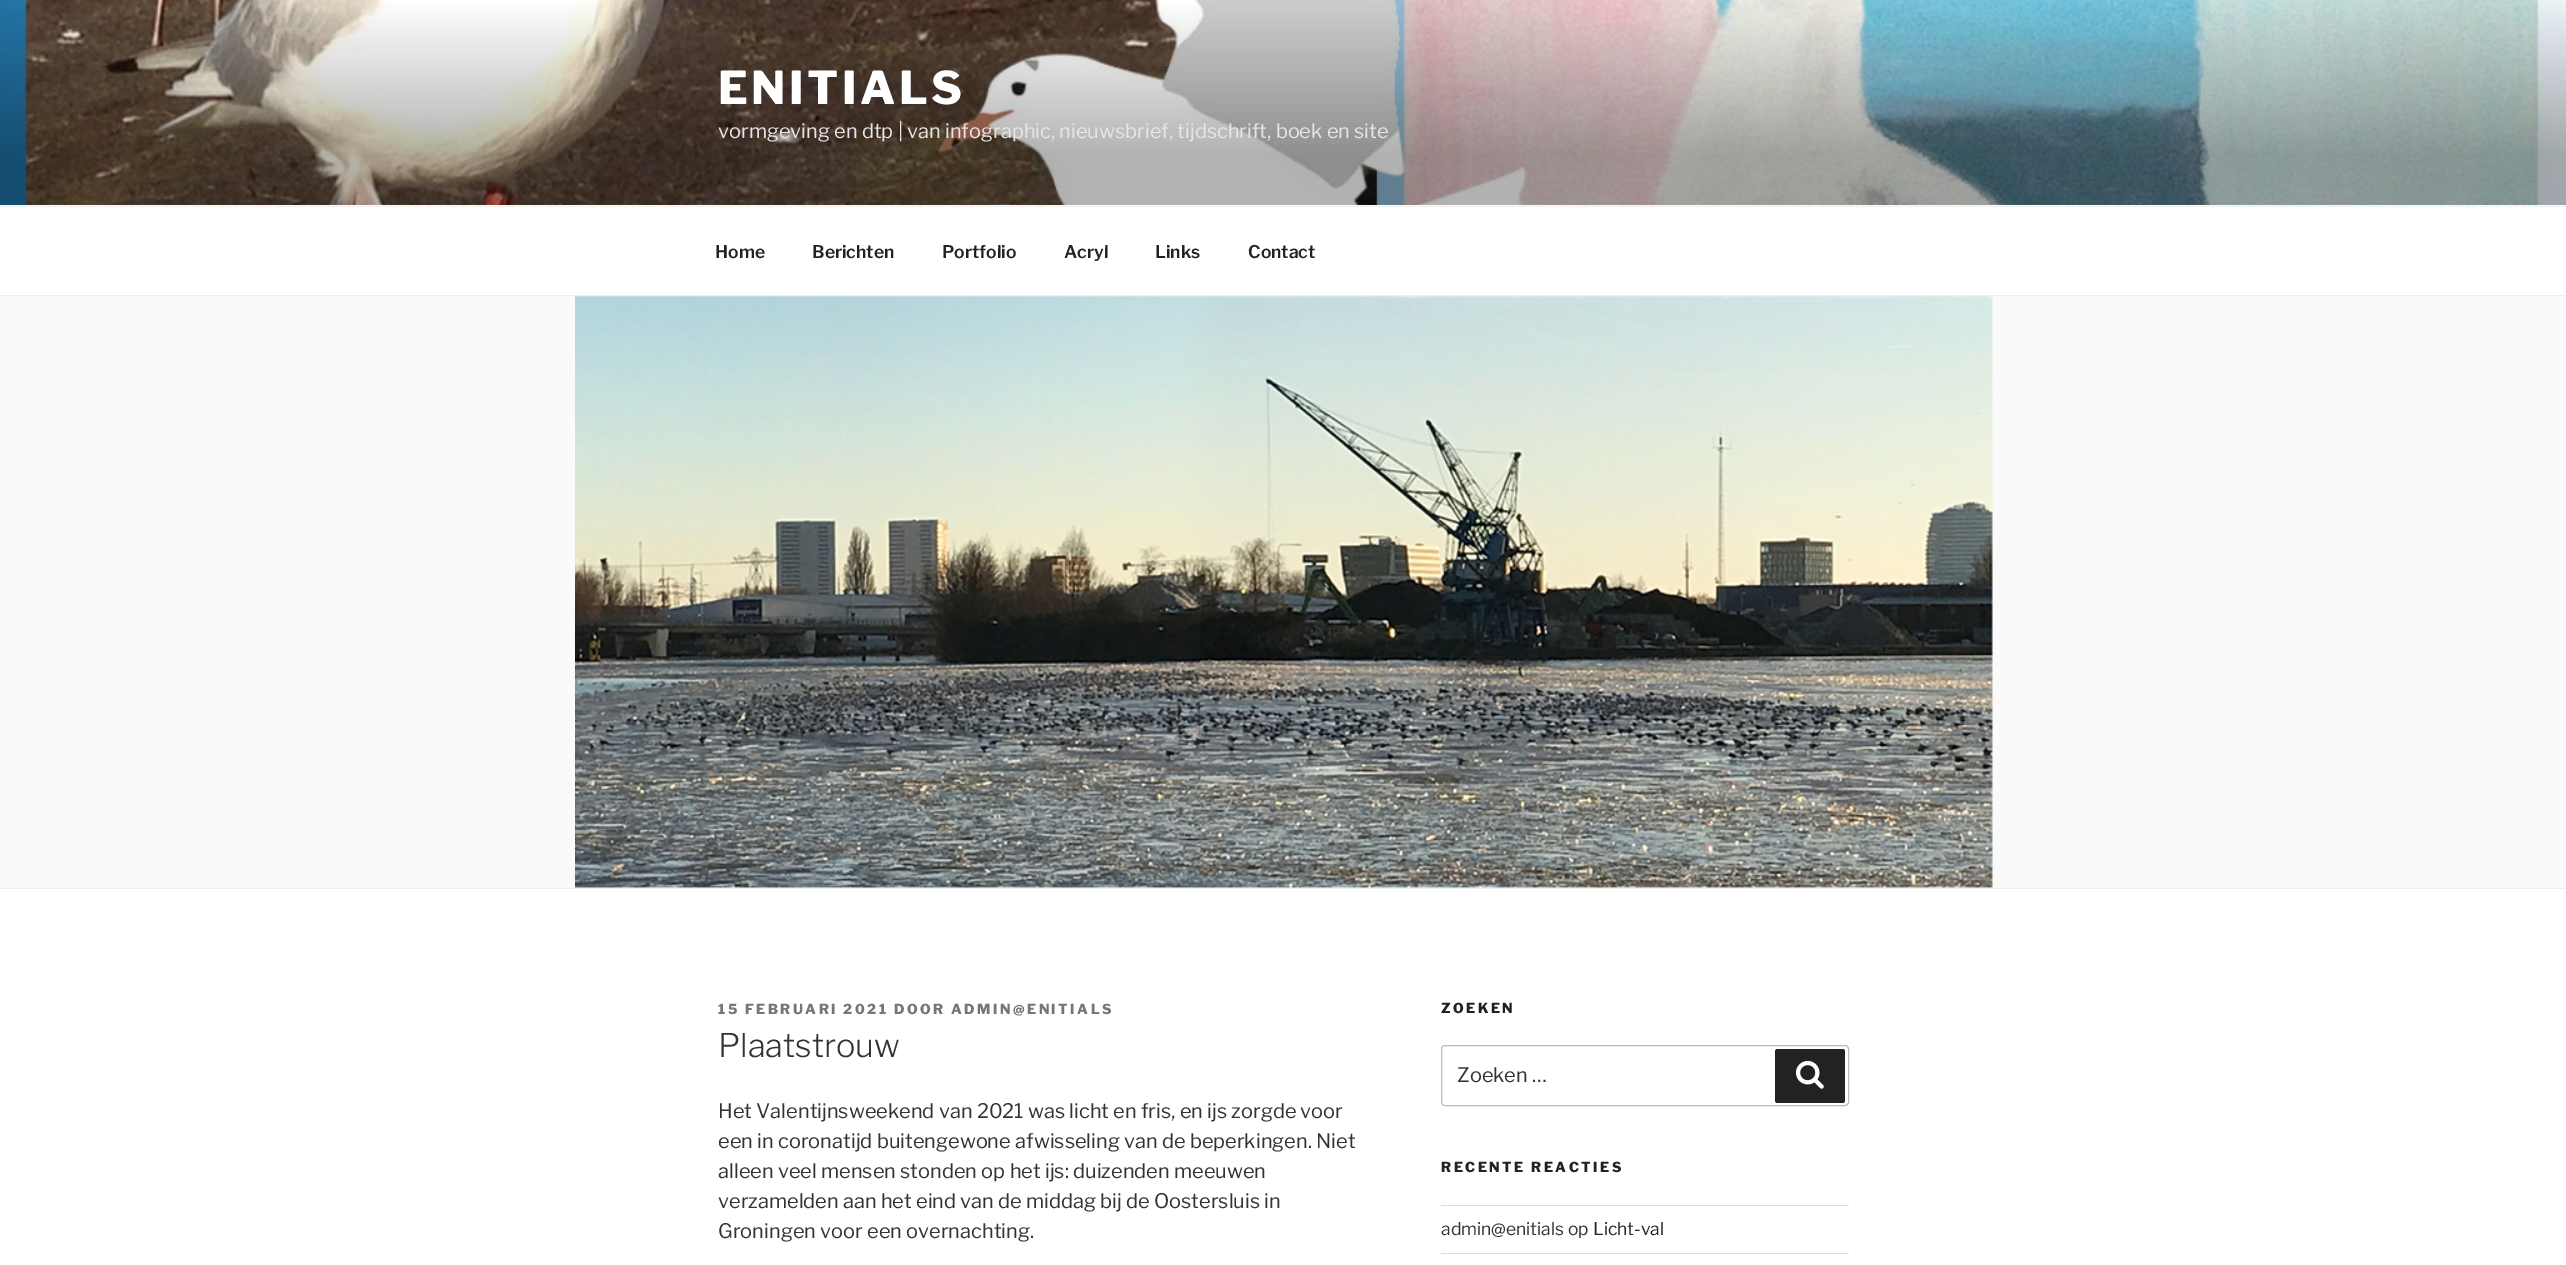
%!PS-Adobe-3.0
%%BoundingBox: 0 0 2566 1265
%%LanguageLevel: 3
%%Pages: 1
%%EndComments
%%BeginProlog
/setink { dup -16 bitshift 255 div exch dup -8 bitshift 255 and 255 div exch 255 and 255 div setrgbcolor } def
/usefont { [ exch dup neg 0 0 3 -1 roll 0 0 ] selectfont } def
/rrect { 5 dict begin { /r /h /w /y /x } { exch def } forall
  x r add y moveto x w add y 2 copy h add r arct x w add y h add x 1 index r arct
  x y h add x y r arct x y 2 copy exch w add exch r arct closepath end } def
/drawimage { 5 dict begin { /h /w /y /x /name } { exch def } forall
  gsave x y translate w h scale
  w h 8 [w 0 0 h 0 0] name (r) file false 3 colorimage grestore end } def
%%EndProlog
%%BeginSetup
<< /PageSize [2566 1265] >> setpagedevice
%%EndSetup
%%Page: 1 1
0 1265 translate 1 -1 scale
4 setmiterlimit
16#FFFFFF setink
0 0 2566 1265 rectfill
16#FAFAFA setink
0 205 2566 1 rectfill
(img1.raw) 0 0 2566 205 drawimage
/LibreFranklin-ExtraBold 45 usefont
16#FFFFFF setink
718 104 moveto 3.5 0 (ENITIALS) ashow
/LibreFranklin-Regular 20 usefont
16#E7E6E5 setink
718 138 moveto (vormgeving en dtp | van infographic, nieuwsbrief, tijdschrift, boek en site) show
16#EEEEEE setink
0 206 2566 1 rectfill
0 295 2566 1 rectfill
/LibreFranklin-SemiBold 17.5 usefont
16#222222 setink
[
    [(Home) 715 258]
    [(Berichten) 812 258]
    [(Portfolio) 942 258]
    [(Acryl) 1064 258]
    [(Links) 1155 258]
    [(Contact) 1248 258]
] { aload pop moveto show } forall
16#FAFAFA setink
0 296 2566 592 rectfill
16#EEEEEE setink
0 888 2566 1 rectfill
(img2.raw) 575 296 1418 592 drawimage
/LibreFranklin-ExtraBold 13.75 usefont
16#767676 setink
718 1014 moveto 2.5 0 (15 FEBRUARI 2021 DOOR ADMIN@ENITIALS) ashow
/LibreFranklin-Light 32.5 usefont
16#333333 setink
718 1057 moveto (Plaatstrouw) show
/LibreFranklin-Regular 20 usefont
[
    [(Het Valentijnsweekend van 2021 was licht en fris, en ijs zorgde voor) 718 1118]
    [(een in coronatijd buitengewone afwisseling van de beperkingen. Niet) 718 1148]
    [(alleen veel mensen stonden op het ijs: duizenden meeuwen) 718 1178]
    [(verzamelden aan het eind van de middag bij de Oostersluis in) 718 1208]
    [(Groningen voor een overnachting.) 718 1238]
] { aload pop moveto show } forall
/LibreFranklin-ExtraBold 13.75 usefont
16#222222 setink
1441 1013 moveto 2.5 0 (ZOEKEN) ashow
16#BBBBBB setink
1441.5 1045.5 407 60 3.5 rrect stroke
/LibreFranklin-Regular 20 usefont
16#333333 setink
1457 1082 moveto (Zoeken …) show
16#222222 setink
1775 1049 70 54 2.5 rrect fill
(img3.raw) 1795 1060 29 29 drawimage
/LibreFranklin-ExtraBold 13.75 usefont
1441 1172 moveto 2.5 0 (RECENTE REACTIES) ashow
16#DDDDDD setink
1441 1205 408 1 rectfill
1441 1253 408 1 rectfill
/LibreFranklin-Regular 17.5 usefont
16#333333 setink
1441 1235 moveto (admin@enitials op) show
16#222222 setink
1593 1235 moveto (Licht-val) show
showpage
%%EOF
